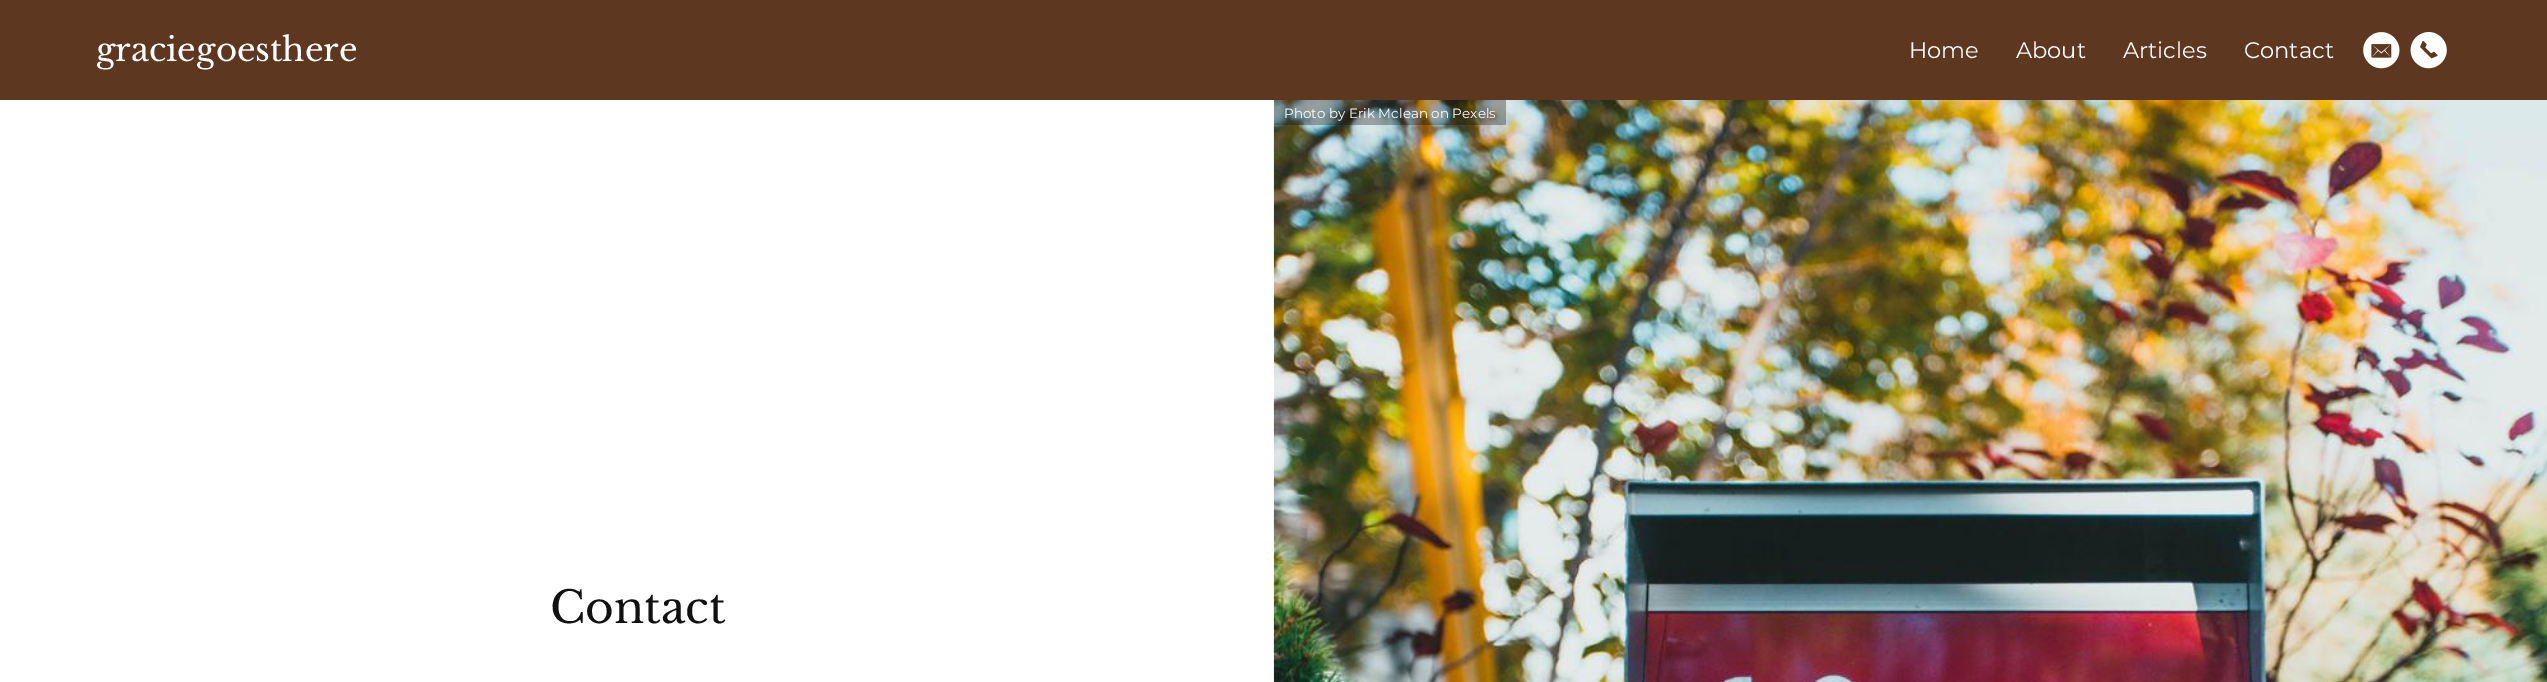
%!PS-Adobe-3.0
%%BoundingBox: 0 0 2547 682
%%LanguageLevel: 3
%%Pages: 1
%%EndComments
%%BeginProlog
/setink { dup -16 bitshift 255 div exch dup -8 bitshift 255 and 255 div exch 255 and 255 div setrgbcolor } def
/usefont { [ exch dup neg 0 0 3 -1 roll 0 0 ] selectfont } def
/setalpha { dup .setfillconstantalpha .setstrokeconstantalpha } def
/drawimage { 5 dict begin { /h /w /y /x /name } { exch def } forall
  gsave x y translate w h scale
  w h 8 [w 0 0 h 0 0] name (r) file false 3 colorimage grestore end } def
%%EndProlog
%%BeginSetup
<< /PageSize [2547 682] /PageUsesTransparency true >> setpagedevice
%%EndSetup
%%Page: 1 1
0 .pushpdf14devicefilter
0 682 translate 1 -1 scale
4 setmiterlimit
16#FFFFFF setink
0 0 2547 682 rectfill
16#5D371F setink
0 0 2547 100 rectfill
/LibreBaskerville-Regular 32.5 usefont
16#FFFFFF setink
96 61 moveto (graciegoesthere) show
/Montserrat-Thin 22.5 usefont
[
    [(Home) 1909 58]
    [(About) 2016 58]
    [(Articles) 2123 58]
    [(Contact) 2244 58]
] { aload pop moveto show } forall
(img1.raw) 2363 32 37 37 drawimage
(img2.raw) 2410 32 37 37 drawimage
(img3.raw) 1273 100 1274 582 drawimage
0.3 setalpha
16#000000 setink
1274 100 232 25 rectfill
/Montserrat-Thin 13.5 usefont
1 setalpha
16#FFFFFF setink
1284 118 moveto (Photo by Erik Mclean on Pexels) show
/LibreBaskerville-Regular 44 usefont
16#111111 setink
550 623 moveto (Contact) show
.poppdf14devicefilter showpage
%%EOF
